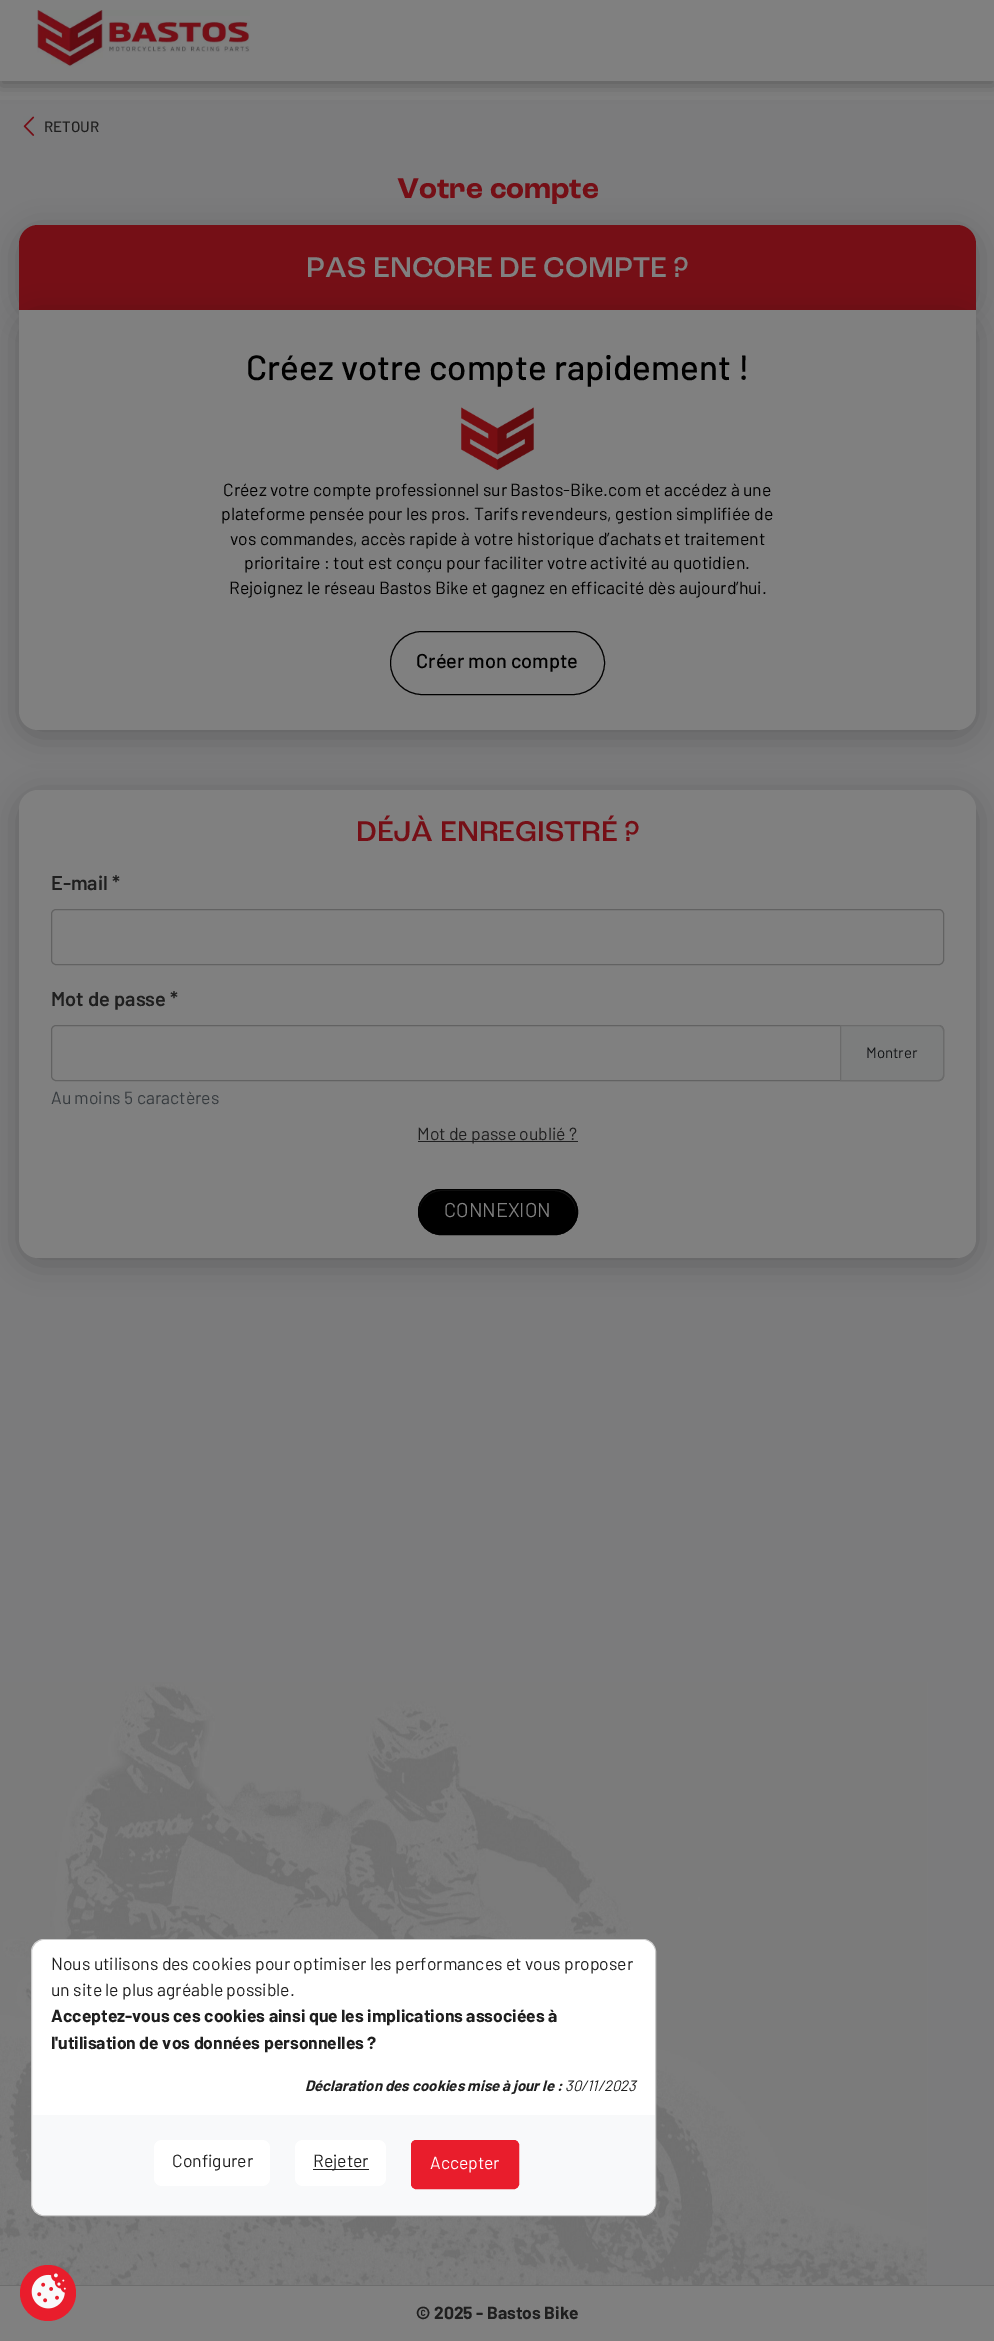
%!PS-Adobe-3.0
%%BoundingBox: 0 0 994 2341
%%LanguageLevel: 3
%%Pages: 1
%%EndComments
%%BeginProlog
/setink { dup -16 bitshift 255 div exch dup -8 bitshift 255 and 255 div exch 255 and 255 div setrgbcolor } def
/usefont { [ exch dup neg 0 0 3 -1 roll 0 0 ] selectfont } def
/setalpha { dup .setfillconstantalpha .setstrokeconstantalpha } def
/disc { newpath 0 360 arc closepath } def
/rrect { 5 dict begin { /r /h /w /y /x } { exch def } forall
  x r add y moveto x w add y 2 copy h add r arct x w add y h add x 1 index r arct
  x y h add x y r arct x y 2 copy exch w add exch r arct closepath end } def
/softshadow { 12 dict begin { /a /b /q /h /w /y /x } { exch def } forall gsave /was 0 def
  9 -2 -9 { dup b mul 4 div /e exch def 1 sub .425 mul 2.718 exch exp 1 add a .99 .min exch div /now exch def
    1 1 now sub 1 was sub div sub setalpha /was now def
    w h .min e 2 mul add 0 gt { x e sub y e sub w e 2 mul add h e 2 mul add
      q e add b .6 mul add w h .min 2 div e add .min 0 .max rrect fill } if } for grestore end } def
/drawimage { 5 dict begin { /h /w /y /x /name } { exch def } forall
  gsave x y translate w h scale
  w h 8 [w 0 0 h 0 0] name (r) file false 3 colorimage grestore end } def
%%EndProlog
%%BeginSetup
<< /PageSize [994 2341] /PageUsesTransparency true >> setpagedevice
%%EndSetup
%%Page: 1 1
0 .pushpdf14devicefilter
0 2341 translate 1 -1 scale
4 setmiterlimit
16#7B7B7C setink
0 0 994 2341 rectfill
16#808080 setink
0 81 994 19 rectfill
16#000000 setink
0 5 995 81 0 8 0.25 softshadow
16#808080 setink
0 0 994 81 rectfill
(img1.raw) 37 10 213 57 drawimage
(img2.raw) 23 116 12 20 drawimage
/Barlow-Medium 15 usefont
16#1F1F1F setink
44 132 moveto (RETOUR) show
/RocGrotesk-Bold 30 usefont
16#750F16 setink
397 198 moveto (Votre compte) show
16#000000 setink
19 231 957 85 19 15 0.2 softshadow
16#750F16 setink
38 225 moveto 957 225 lineto 967.5 225 976 233.5 976 244 curveto 976 310 lineto 19 310 lineto 19 244 lineto 19 233.5 27.5 225 38 225 curveto closepath fill
/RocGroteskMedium-Medium 30 usefont
16#808080 setink
306 277 moveto (PAS ENCORE DE COMPTE ?) show
16#000000 setink
19 316 957 420 19 15 0.2 softshadow
16#808080 setink
19 310 moveto 976 310 lineto 976 711 lineto 976 721.5 967.5 730 957 730 curveto 38 730 lineto 27.5 730 19 721.5 19 711 curveto closepath fill
/Barlow-Medium 35 usefont
16#000000 setink
246 380 moveto (Créez votre compte rapidement !) show
(img3.raw) 461 407 73 63 drawimage
/Barlow-Regular 17.5 usefont
[
    [(Créez votre compte professionnel sur Bastos-Bike.com et accédez à une) 223 496]
    [(plateforme pensée pour les pros. Tarifs revendeurs, gestion simplifiée de) 221 520]
    [(vos commandes, accès rapide à votre historique d’achats et traitement) 230 545]
    [(prioritaire : tout est conçu pour faciliter votre activité au quotidien.) 244 569]
    [(Rejoignez le réseau Bastos Bike et gagnez en efficacité dès aujourd’hui.) 229 594]
] { aload pop moveto show } forall
390.5 631.5 214 63 31.5 rrect stroke
/Barlow-Medium 20 usefont
416 668 moveto (Créer mon compte) show
19 796 957 468 19 15 0.2 softshadow
16#808080 setink
19 790 957 468 19 rrect fill
/RocGroteskMedium-Medium 30 usefont
16#750F16 setink
356 841 moveto (DÉJÀ ENREGISTRÉ ?) show
/Barlow-SemiBold 20 usefont
16#1F1F1F setink
51 890 moveto (E-mail *) show
16#626262 setink
51.5 909.5 892 55 4.5 rrect stroke
16#1F1F1F setink
51 1006 moveto (Mot de passe *) show
16#626262 setink
51.5 1025.5 892 55 4.5 rrect stroke
16#7C7D7D setink
840.5 1025.5 moveto 938 1025.5 lineto 941 1025.5 943.5 1028 943.5 1031 curveto 943.5 1075 lineto 943.5 1078 941 1080.5 938 1080.5 curveto 840.5 1080.5 lineto closepath gsave fill grestore
16#6B6B6B setink
stroke
/Barlow-Regular 15 usefont
16#111315 setink
866 1058 moveto (Montrer) show
/Barlow-Regular 17.5 usefont
16#363B3F setink
51 1104 moveto (Au moins 5 caractères) show
16#202021 setink
418 1141 160 1 rectfill
16#1F1F1F setink
417 1140 moveto (Mot de passe oublié ?) show
16#000000 setink
418 1189 160 46 23 rrect fill
16#131313 setink
441 1191 moveto 554 1191 lineto 566 1191 576 1201 576 1213 curveto 576 1212 lineto 576 1200 566 1190 554 1190 curveto 441 1190 lineto 429 1190 419 1200 419 1212 curveto 419 1213 lineto 419 1201 429 1191 441 1191 curveto closepath fill
16#000000 setink
418.5 1189.5 159 45 22.5 rrect stroke
/Barlow-Regular 20 usefont
16#808080 setink
444 1217 moveto (CONNEXION) show
(img4.raw) 0 1682 928 603 drawimage
0 2286 994 55 rectfill
16#6D6D6D setink
0 2285 994 1 rectfill
/Barlow-Bold 17.5 usefont
16#1F1F1F setink
416 2319 moveto (© 2025 - Bastos Bike) show
16#FFFFFF setink
31.5 1939.5 624 276 12.5 rrect gsave fill grestore
16#CCCCCC setink
stroke
16#FFFFFF setink
33 1940 622 275 13 rrect fill
/Barlow-Regular 17.5 usefont
16#1F1F1F setink
51 1970 moveto (Nous utilisons des cookies pour optimiser les performances et vous proposer) show
51 1996 moveto (un site le plus agréable possible.) show
/Barlow-Bold 17.5 usefont
51 2022 moveto (Acceptez-vous ces cookies ainsi que les implications associées à) show
51 2049 moveto (l'utilisation de vos données personnelles ?) show
/Barlow-BoldItalic 15 usefont
305 2091 moveto (Déclaration des cookies mise à jour le :) show
/Barlow-Italic 15 usefont
565 2091 moveto (30/11/2023) show
16#F8F9FA setink
33 2115 moveto 655 2115 lineto 655 2202 lineto 655 2209 649 2215 642 2215 curveto 46 2215 lineto 39 2215 33 2209 33 2202 curveto closepath fill
16#FFFFFF setink
154 2140 116 46 8 rrect fill
/Barlow-Regular 17.5 usefont
16#1F1F1F setink
172 2167 moveto (Configurer) show
16#FFFFFF setink
295 2140 91 46 8 rrect fill
16#232323 setink
313 2169 56 1 rectfill
16#1F1F1F setink
313 2167 moveto (Rejeter) show
16#E91D2C setink
411.5 2140.5 107 48 4.5 rrect gsave fill grestore
stroke
16#FFFFFF setink
430 2169 moveto (Accepter) show
16#E91D2C setink
48 2293 28 disc fill
(img5.raw) 31 2273 35 36 drawimage
.poppdf14devicefilter showpage
%%EOF
